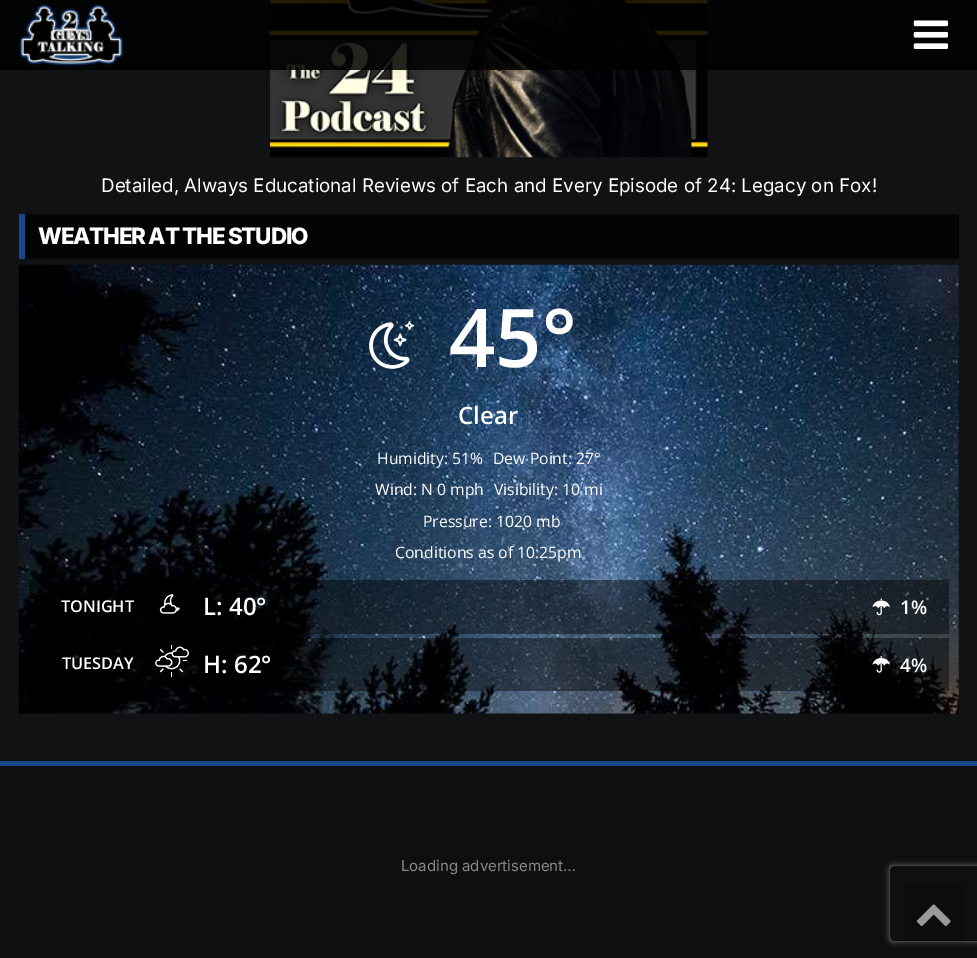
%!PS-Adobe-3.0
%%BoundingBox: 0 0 977 958
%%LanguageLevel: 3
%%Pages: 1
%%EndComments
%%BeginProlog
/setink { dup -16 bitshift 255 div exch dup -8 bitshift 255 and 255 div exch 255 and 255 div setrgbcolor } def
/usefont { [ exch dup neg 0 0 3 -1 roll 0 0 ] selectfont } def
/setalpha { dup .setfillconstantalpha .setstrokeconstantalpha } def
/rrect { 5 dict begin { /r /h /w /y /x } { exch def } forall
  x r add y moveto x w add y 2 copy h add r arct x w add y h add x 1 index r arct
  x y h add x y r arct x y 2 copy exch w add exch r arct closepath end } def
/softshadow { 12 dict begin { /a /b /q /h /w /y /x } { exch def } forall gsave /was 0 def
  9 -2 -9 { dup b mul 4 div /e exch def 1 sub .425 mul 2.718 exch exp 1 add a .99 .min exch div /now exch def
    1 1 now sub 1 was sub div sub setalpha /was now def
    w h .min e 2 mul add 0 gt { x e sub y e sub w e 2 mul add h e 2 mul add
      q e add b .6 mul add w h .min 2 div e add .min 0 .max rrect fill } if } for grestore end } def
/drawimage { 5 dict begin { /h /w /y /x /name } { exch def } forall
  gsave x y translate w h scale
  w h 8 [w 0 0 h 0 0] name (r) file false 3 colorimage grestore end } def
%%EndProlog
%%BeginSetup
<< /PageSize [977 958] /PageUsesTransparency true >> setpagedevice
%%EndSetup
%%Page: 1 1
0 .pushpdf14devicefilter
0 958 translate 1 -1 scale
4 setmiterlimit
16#111214 setink
0 0 977 958 rectfill
(img3.raw) 270 0 438 158 drawimage
gsave
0 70 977 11 rectclip
16#000000 setink
0 0 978 70 0 12.5 0.1 softshadow
grestore
0.86 setalpha
16#000000 setink
0 0 977 70 rectfill
1 setalpha
(img1.raw) 19 4 105 62 drawimage
(img2.raw) 913 20 36 29 drawimage
/Inter-Regular 18.75 usefont
16#FFFFFF setink
101 192 moveto (Detailed, Always Educational Reviews of Each and Every Episode of 24: Legacy on Fox!) show
16#030404 setink
25 214 934 45 rectfill
16#17488A setink
19 214 6 45 rectfill
/Inter-ExtraBold 22.5 usefont
16#FFFFFF setink
38 244 moveto -1.25 0 (WEATHER AT THE STUDIO) ashow
(img4.raw) 18 264 941 450 drawimage
(img5.raw) 369 321 46 48 drawimage
/OpenSans-SemiBold 81 usefont
449 367 moveto (45°) show
/OpenSans-SemiBold 24 usefont
458 424 moveto (Clear) show
/OpenSans-Regular 15.75 usefont
[
    [(Humidity: 51%) 377 464]
    [(Dew Point: 27°) 493 464]
    [(Wind: N 0 mph) 375 495]
    [(Visibility: 10 mi) 494 495]
    [(Pressure: 1020 mb) 423 527]
    [(Conditions as of 10:25pm) 395 558]
] { aload pop moveto show } forall
0.45 setalpha
16#000000 setink
29 580 920 54 rectfill
/OpenSans-SemiBold 16.25 usefont
1 setalpha
16#FFFFFF setink
61 612 moveto (TONIGHT) show
(img6.raw) 159 594 21 20 drawimage
/OpenSans-SemiBold 24 usefont
203 615 moveto (L: 40°) show
(img7.raw) 872 598 18 18 drawimage
/OpenSans-SemiBold 18.75 usefont
900 614 moveto (1%) show
0.45 setalpha
16#000000 setink
42 638 907 53 rectfill
/OpenSans-SemiBold 16.25 usefont
1 setalpha
16#FFFFFF setink
62 669 moveto (TUESDAY) show
(img8.raw) 155 645 34 32 drawimage
/OpenSans-SemiBold 24 usefont
203 673 moveto (H: 62°) show
(img9.raw) 872 656 18 17 drawimage
/OpenSans-SemiBold 18.75 usefont
900 672 moveto (4%) show
16#0F0F0F setink
0 766 977 192 rectfill
16#17488A setink
0 761 977 5 rectfill
/Inter-Regular 15 usefont
16#888888 setink
401 871 moveto (Loading advertisement…) show
16#0C0C0C setink
903 884 62 62 6 rrect fill
(img10.raw) 916 904 35 22 drawimage
gsave
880 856 moveto 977 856 lineto 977 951 lineto 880 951 lineto closepath 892.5 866 moveto 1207.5 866 lineto 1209 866 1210 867 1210 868.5 curveto 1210 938.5 lineto 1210 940 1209 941 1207.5 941 curveto 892.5 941 lineto 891 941 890 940 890 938.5 curveto 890 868.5 lineto 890 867 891 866 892.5 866 curveto closepath eoclip newpath
16#808080 setink
890 866 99 75 2.5 3 1 softshadow
grestore
.poppdf14devicefilter showpage
%%EOF
